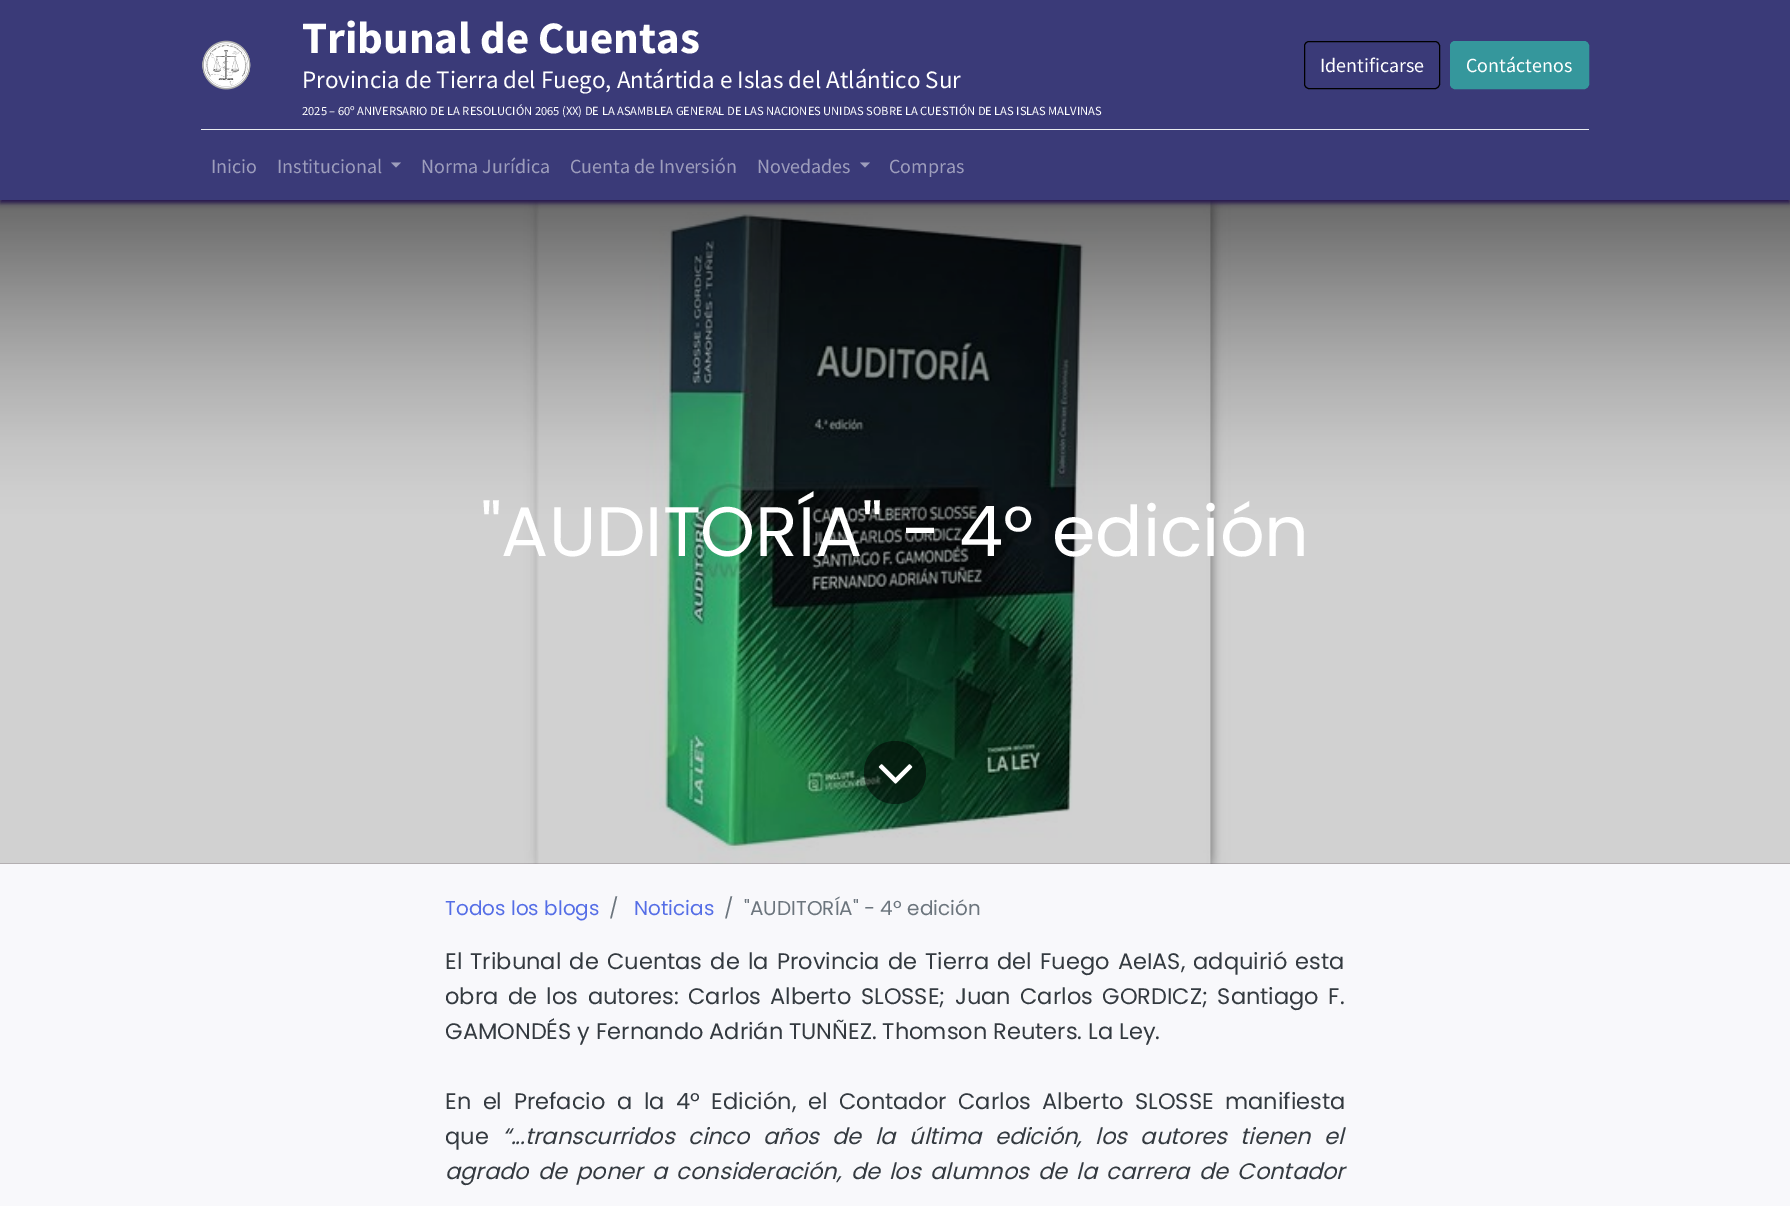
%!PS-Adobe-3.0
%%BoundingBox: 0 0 1790 1206
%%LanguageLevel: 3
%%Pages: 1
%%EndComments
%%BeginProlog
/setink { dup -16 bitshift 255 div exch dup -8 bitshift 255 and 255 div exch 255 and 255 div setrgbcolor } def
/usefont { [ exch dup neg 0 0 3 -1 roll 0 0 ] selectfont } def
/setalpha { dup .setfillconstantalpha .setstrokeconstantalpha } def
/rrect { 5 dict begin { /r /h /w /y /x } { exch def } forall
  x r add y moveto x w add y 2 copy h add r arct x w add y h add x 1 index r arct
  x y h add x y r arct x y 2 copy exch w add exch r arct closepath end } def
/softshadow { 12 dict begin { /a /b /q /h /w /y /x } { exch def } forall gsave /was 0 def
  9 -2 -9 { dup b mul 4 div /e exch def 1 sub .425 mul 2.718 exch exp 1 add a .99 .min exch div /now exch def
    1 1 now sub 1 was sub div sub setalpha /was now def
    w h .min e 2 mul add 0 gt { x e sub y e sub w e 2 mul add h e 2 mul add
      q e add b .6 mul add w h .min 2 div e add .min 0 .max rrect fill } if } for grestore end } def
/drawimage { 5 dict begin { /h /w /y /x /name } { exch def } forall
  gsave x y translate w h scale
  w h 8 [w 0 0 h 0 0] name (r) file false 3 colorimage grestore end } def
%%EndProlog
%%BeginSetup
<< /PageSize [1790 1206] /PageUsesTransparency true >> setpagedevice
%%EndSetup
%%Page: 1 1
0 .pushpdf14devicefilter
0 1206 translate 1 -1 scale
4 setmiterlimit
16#F8F8FB setink
0 0 1790 1206 rectfill
(img2.raw) 0 200 1790 664 drawimage
0.18 setalpha
16#000000 setink
0 200 1790 664 rectfill
1 setalpha
16#21104A setink
0 3 1790 200 0 2.5 1 softshadow
16#3A3A78 setink
0 0 1790 200 rectfill
(img1.raw) 202 40 49 50 drawimage
/SourceSansPro-Bold 45 usefont
16#FFFFFF setink
302 53 moveto (Tribunal de Cuentas) show
/SourceSansPro-Regular 25 usefont
302 88 moveto (Provincia de Tierra del Fuego, Antártida e Islas del Atlántico Sur) show
/SourceSansPro-Regular 12.5 usefont
302 115 moveto (2025 – 60º ANIVERSARIO DE LA RESOLUCIÓN 2065 \(XX\) DE LA ASAMBLEA GENERAL DE LAS NACIONES UNIDAS SOBRE LA CUESTIÓN DE LAS ISLAS MALVINAS) show
16#000000 setink
1304.5 41.5 135 47 4.5 rrect stroke
/SourceSansPro-Regular 20 usefont
16#FFFFFF setink
1320 72 moveto (Identificarse) show
16#35979C setink
1450.5 41.5 138 47 4.5 rrect gsave fill grestore
stroke
16#FFFFFF setink
1466 72 moveto (Contáctenos) show
16#E9ECEF setink
201 129 1388 1 rectfill
16#9D9DBC setink
211 173 moveto (Inicio) show
277 173 moveto (Institucional) show
391 162.5 moveto 401 162.5 lineto 396 167.5 lineto closepath fill
[
    [(Norma Jurídica) 421 173]
    [(Cuenta de Inversión) 570 173]
    [(Novedades) 757 173]
] { aload pop moveto show } forall
860 162.5 moveto 870 162.5 lineto 865 167.5 lineto closepath fill
889 173 moveto (Compras) show
/Poppins-Regular 70 usefont
16#FFFFFF setink
481 556 moveto ("AUDITORÍA" - 4º edición) show
0.5 setalpha
16#000000 setink
864 741 62 63 31 rrect fill
1 setalpha
(img3.raw) 878 764 35 20 drawimage
/Poppins-Regular 20 usefont
16#556EE6 setink
445 915 moveto (Todos los blogs) show
16#6C757D setink
609 915 moveto (/) show
16#556EE6 setink
634 915 moveto (Noticias) show
16#6C757D setink
724 915 moveto (/) show
744 915 moveto ("AUDITORÍA" - 4º edición) show
/Poppins-Regular 22.5 usefont
16#343A40 setink
445 969 moveto 2.25 0 32 (El Tribunal de Cuentas de la Provincia de Tierra del Fuego AeIAS, adquirió esta) widthshow
445 1004 moveto 3.5 0 32 (obra de los autores: Carlos Alberto SLOSSE; Juan Carlos GORDICZ; Santiago F.) widthshow
445 1039 moveto (GAMONDÉS y Fernando Adrián TUNÑEZ. Thomson Reuters. La Ley.) show
445 1109 moveto 5.6 0 32 (En el Prefacio a la 4º Edición, el Contador Carlos Alberto SLOSSE manifiesta) widthshow
445 1144 moveto (que) show
/Poppins-Italic 22.5 usefont
502 1144 moveto 7.5 0 32 (“...transcurridos cinco años de la última edición, los autores tienen el) widthshow
445 1179 moveto 3.25 0 32 (agrado de poner a consideración, de los alumnos de la carrera de Contador) widthshow
.poppdf14devicefilter showpage
%%EOF
